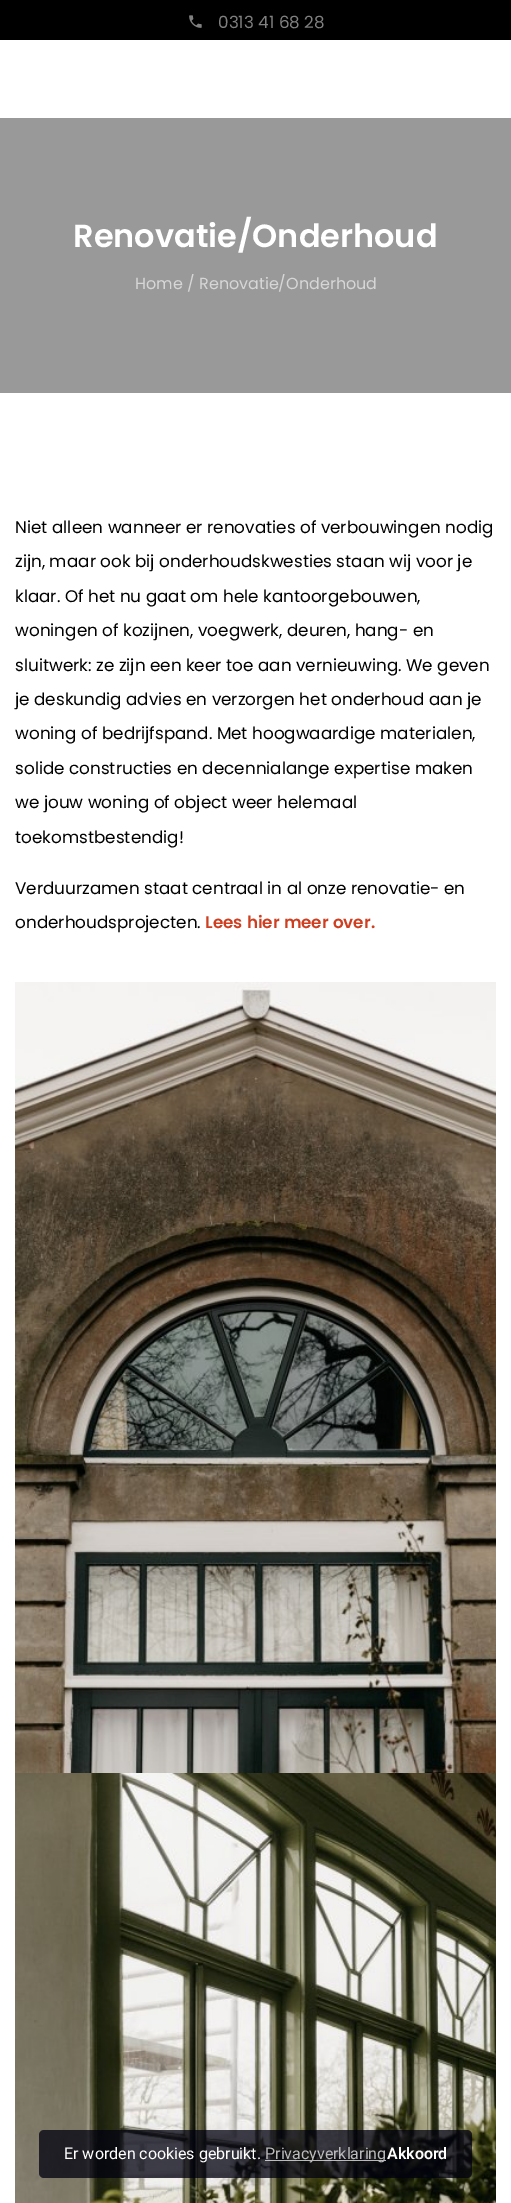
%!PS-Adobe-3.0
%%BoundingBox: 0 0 511 2203
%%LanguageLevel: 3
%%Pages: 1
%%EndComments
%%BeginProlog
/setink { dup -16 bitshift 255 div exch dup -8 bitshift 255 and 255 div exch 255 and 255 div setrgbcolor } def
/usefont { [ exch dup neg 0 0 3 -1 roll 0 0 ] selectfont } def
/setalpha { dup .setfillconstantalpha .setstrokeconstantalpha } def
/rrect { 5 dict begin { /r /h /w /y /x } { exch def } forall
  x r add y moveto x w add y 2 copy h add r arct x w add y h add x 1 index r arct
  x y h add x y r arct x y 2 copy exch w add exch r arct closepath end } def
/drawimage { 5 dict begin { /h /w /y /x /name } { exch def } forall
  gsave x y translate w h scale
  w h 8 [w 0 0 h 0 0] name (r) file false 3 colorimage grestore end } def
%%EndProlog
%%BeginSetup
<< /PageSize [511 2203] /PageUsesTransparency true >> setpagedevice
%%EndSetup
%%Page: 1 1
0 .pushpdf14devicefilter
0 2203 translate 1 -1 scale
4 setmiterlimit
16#FFFFFF setink
0 0 511 2203 rectfill
16#000000 setink
0 0 511 40 rectfill
(img1.raw) 189 15 13 13 drawimage
/Poppins-Regular 16.8 usefont
16#808080 setink
218 28 moveto (0313 41 68 28) show
16#999999 setink
0 118 511 275 rectfill
/Poppins-SemiBold 32 usefont
16#FFFFFF setink
73 247 moveto (Renovatie/Onderhoud) show
/Poppins-Regular 16 usefont
16#D6D6D6 setink
135 289 moveto (Home / Renovatie/Onderhoud) show
/Poppins-Regular 16.8 usefont
16#000000 setink
[
    [(Niet alleen wanneer er renovaties of verbouwingen nodig) 15 533]
    [(zijn, maar ook bij onderhoudskwesties staan wij voor je) 15 567]
    [(klaar. Of het nu gaat om hele kantoorgebouwen,) 15 602]
    [(woningen of kozijnen, voegwerk, deuren, hang- en) 15 636]
    [(sluitwerk: ze zijn een keer toe aan vernieuwing. We geven) 15 671]
    [(je deskundig advies en verzorgen het onderhoud aan je) 15 705]
    [(woning of bedrijfspand. Met hoogwaardige materialen,) 15 739]
    [(solide constructies en decennialange expertise maken) 15 774]
    [(we jouw woning of object weer helemaal) 15 808]
    [(toekomstbestendig!) 15 843]
    [(Verduurzamen staat centraal in al onze renovatie- en) 15 894]
    [(onderhoudsprojecten.) 15 928]
] { aload pop moveto show } forall
/Poppins-SemiBold 16.8 usefont
16#CD3F20 setink
205 928 moveto (Lees hier meer over.) show
(img2.raw) 15 982 481 791 drawimage
(img3.raw) 15 1773 481 430 drawimage
0.75 setalpha
16#00000F setink
39 2130 433 48 5 rrect fill
/Roboto-Regular 16 usefont
1 setalpha
16#FFFFFF setink
64 2159 moveto (Er worden cookies gebruikt.) show
0.7 setalpha
265 2160 121 1 rectfill
1 setalpha
16#BABABB setink
265 2159 moveto (Privacyverklaring) show
/Roboto-SemiBold 16 usefont
16#FFFFFF setink
387 2159 moveto (Akkoord) show
.poppdf14devicefilter showpage
%%EOF
